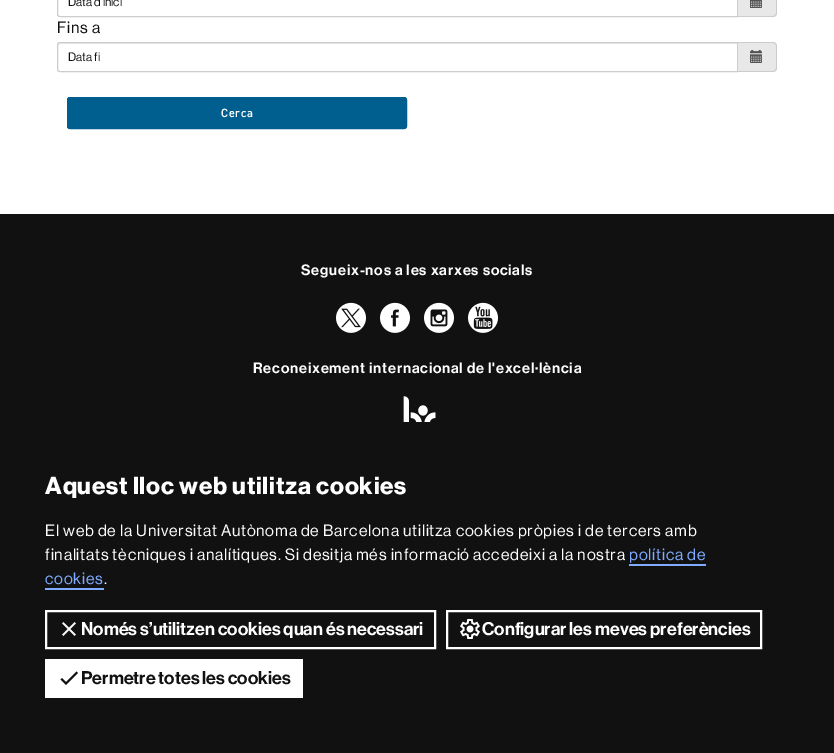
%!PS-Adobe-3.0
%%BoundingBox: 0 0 834 753
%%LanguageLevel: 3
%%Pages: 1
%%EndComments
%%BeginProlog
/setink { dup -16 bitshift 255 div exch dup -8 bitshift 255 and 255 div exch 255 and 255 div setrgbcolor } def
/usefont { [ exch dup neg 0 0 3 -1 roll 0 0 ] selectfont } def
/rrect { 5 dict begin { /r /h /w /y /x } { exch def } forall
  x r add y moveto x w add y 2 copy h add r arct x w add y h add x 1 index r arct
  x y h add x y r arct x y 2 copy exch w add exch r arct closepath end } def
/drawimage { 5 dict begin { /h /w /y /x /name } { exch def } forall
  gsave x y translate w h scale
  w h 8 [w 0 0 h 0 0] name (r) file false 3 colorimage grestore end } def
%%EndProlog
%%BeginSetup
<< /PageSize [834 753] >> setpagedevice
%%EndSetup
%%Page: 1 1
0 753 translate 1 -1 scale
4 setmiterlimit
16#FFFFFF setink
0 0 834 753 rectfill
16#CCCCCC setink
60 -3.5 moveto 737.5 -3.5 lineto 737.5 16.5 lineto 60 16.5 lineto 58.5 16.5 57.5 15.5 57.5 14 curveto 57.5 -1 lineto 57.5 -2.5 58.5 -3.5 60 -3.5 curveto closepath stroke
/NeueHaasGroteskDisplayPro-Medium 12 usefont
16#111111 setink
68 6 moveto (Data d'inici) show
16#E8E8E8 setink
738 -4 moveto 773 -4 lineto 775 -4 777 -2 777 0 curveto 777 13 lineto 777 15 775 17 773 17 curveto 738 17 lineto closepath fill
16#CCCCCC setink
738 -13 moveto 773 -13 lineto 775 -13 777 -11 777 -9 curveto 777 13 lineto 777 15 775 17 773 17 curveto 738 17 lineto closepath 738 -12 moveto 773 -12 lineto 774.5 -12 776 -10.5 776 -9 curveto 776 13 lineto 776 14.5 774.5 16 773 16 curveto 738 16 lineto closepath eofill
(img1.raw) 750 0 12 8 drawimage
/NeueHaasGroteskDisplayPro-Medium 16 usefont
16#111111 setink
57 33 moveto 0.8 0 (Fins a) ashow
16#ECECEC setink
60 44 moveto 737 44 lineto 737 43 lineto 60 43 lineto 58 43 58 45 58 46 curveto 58 45 59 44 60 44 curveto closepath fill
16#CCCCCC setink
60 42.5 moveto 737.5 42.5 lineto 737.5 71.5 lineto 60 71.5 lineto 58.5 71.5 57.5 70.5 57.5 69 curveto 57.5 45 lineto 57.5 43.5 58.5 42.5 60 42.5 curveto closepath stroke
/NeueHaasGroteskDisplayPro-Medium 12 usefont
16#111111 setink
68 61 moveto (Data fi) show
16#E8E8E8 setink
738 42 moveto 773 42 lineto 775 42 777 44 777 46 curveto 777 68 lineto 777 70 775 72 773 72 curveto 738 72 lineto closepath fill
16#CCCCCC setink
738 42 moveto 773 42 lineto 775 42 777 44 777 46 curveto 777 68 lineto 777 70 775 72 773 72 curveto 738 72 lineto closepath 738 43 moveto 773 43 lineto 774.5 43 776 44.5 776 46 curveto 776 68 lineto 776 69.5 774.5 71 773 71 curveto 738 71 lineto closepath eofill
(img2.raw) 750 50 12 13 drawimage
16#005F8F setink
67 97 340 32 3 rrect fill
16#005884 setink
70 100 moveto 404 100 lineto 405 100 405 100 405 101 curveto 405 100 lineto 405 99 405 99 404 99 curveto 70 99 lineto 69 99 69 99 69 100 curveto 69 101 lineto 69 100 69 100 70 100 curveto closepath fill
16#005F8F setink
2 setlinewidth
68 98 338 30 2 rrect stroke
/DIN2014-SemiBold 12 usefont
16#FFFFFF setink
221 117 moveto 0.8 0 (Cerca) ashow
16#111111 setink
0 214 834 539 rectfill
/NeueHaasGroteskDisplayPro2-Medium 14.75 usefont
16#FFFFFF setink
301 275 moveto 0.8 0 (Segueix-nos a les xarxes socials) ashow
(img3.raw) 336 302 30 31 drawimage
(img4.raw) 380 302 30 31 drawimage
(img5.raw) 424 302 30 31 drawimage
(img6.raw) 468 302 30 31 drawimage
253 373 moveto 0.8 0 (Reconeixement internacional de l'excel·lència) ashow
(img7.raw) 403 396 33 26 drawimage
/NeueHaasGroteskDisplayPro-Bold 24 usefont
45 494 moveto 0.8 0 (Aquest lloc web utilitza cookies) ashow
/NeueHaasGroteskDisplayPro-Medium 16 usefont
45 536 moveto 0.8 0 (El web de la Universitat Autònoma de Barcelona utilitza cookies pròpies i de tercers amb) ashow
45 560 moveto 0.8 0 (finalitats tècniques i analítiques. Si desitja més informació accedeixi a la nostra) ashow
16#80ACFF setink
629 560 moveto 0.8 0 (política de) ashow
629 564 77 2 rectfill
45 584 moveto 0.8 0 (cookies) ashow
45 588 59 2 rectfill
16#FFFFFF setink
104 584 moveto 0.8 0 (.) ashow
46 611 389 37 rectstroke
(img8.raw) 62 622 14 14 drawimage
/NeueHaasGroteskDisplayPro2-Medium 18 usefont
81 635 moveto (Només s’utilitzen cookies quan és necessari) show
447 611 314 37 rectstroke
(img9.raw) 460 619 20 20 drawimage
482 635 moveto (Configurar les meves preferències) show
45 659 258 39 rectfill
16#111111 setink
66 682 moveto 62 678 lineto 60.5 679.5 lineto 66 685 lineto 78 673 lineto 76.5 671.5 lineto closepath fill
81 684 moveto (Permetre totes les cookies) show
showpage
%%EOF
